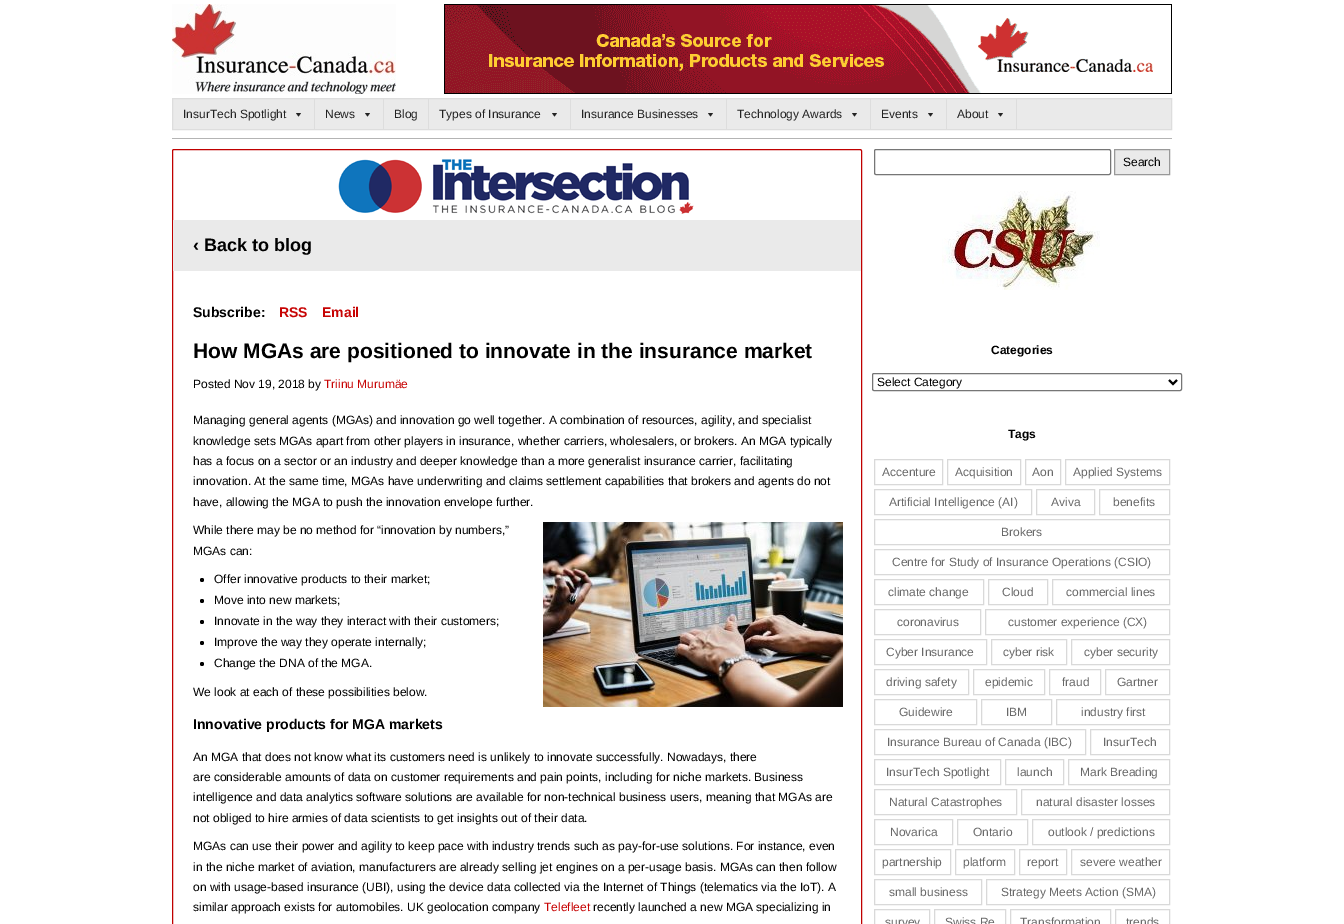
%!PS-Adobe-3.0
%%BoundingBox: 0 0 1344 924
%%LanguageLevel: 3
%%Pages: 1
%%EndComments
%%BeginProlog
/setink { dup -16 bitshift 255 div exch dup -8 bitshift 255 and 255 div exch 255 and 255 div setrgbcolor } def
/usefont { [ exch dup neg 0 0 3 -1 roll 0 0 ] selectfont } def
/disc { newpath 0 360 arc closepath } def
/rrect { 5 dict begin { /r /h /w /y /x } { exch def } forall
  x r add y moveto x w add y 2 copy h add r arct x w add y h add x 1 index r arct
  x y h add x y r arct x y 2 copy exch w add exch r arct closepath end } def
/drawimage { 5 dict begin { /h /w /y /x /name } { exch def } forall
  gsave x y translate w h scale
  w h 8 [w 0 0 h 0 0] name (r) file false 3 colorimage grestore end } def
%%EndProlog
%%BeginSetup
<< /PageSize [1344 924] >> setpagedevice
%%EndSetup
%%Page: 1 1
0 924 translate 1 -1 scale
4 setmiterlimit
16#FFFFFF setink
0 0 1344 924 rectfill
(img1.raw) 172 4 224 90 drawimage
(img2.raw) 444 4 728 90 drawimage
16#EAEAEA setink
172.5 98.5 moveto 1171.5 98.5 lineto 1171.5 129.5 lineto 172.5 129.5 lineto closepath gsave fill grestore
16#DDDDDD setink
stroke
314 99 1 30 rectfill
/LiberationSans-Regular 12 usefont
16#222222 setink
183 118 moveto (InsurTech Spotlight) show
301 113 moveto 298.5 116.5 lineto 296 113 lineto closepath fill
16#DDDDDD setink
383 99 1 30 rectfill
16#222222 setink
325 118 moveto (News) show
370 113 moveto 367.5 116.5 lineto 365 113 lineto closepath fill
16#DDDDDD setink
428 99 1 30 rectfill
16#222222 setink
394 118 moveto (Blog) show
16#DDDDDD setink
570 99 1 30 rectfill
16#222222 setink
439 118 moveto (Types of Insurance) show
557 113 moveto 554.5 116.5 lineto 552 113 lineto closepath fill
16#DDDDDD setink
726 99 1 30 rectfill
16#222222 setink
581 118 moveto (Insurance Businesses) show
713 113 moveto 710.5 116.5 lineto 708 113 lineto closepath fill
16#DDDDDD setink
870 99 1 30 rectfill
16#222222 setink
737 118 moveto (Technology Awards) show
857 113 moveto 854.5 116.5 lineto 852 113 lineto closepath fill
16#DDDDDD setink
946 99 1 30 rectfill
16#222222 setink
881 118 moveto (Events) show
933 113 moveto 930.5 116.5 lineto 928 113 lineto closepath fill
16#DDDDDD setink
1016 99 1 30 rectfill
16#222222 setink
957 118 moveto (About) show
1003 113 moveto 1000.5 116.5 lineto 998 113 lineto closepath fill
16#B4B4B4 setink
172 138 1000 1 rectfill
16#C00000 setink
172.5 149.5 689 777 1.5 rrect stroke
(img3.raw) 338 159 356 55 drawimage
16#EAEAEA setink
173 220 688 51 rectfill
/LiberationSans-Bold 18 usefont
16#000000 setink
193 251 moveto (‹ Back to blog) show
/LiberationSans-Bold 14 usefont
193 317 moveto (Subscribe:) show
16#C70303 setink
279 317 moveto (RSS) show
322 317 moveto (Email) show
/LiberationSans-Bold 21 usefont
16#000000 setink
193 358 moveto (How MGAs are positioned to innovate in the insurance market) show
/LiberationSans-Regular 12 usefont
193 388 moveto (Posted Nov 19, 2018 by) show
16#C70303 setink
324 388 moveto (Triinu Murumäe) show
16#000000 setink
[
    [(Managing general agents \(MGAs\) and innovation go well together. A combination of resources, agility, and specialist) 193 424]
    [(knowledge sets MGAs apart from other players in insurance, whether carriers, wholesalers, or brokers. An MGA typically) 193 445]
    [(has a focus on a sector or an industry and deeper knowledge than a more generalist insurance carrier, facilitating) 193 465]
    [(innovation. At the same time, MGAs have underwriting and claims settlement capabilities that brokers and agents do not) 193 485]
    [(have, allowing the MGA to push the innovation envelope further.) 193 506]
    [(While there may be no method for “innovation by numbers,”) 193 534]
] { aload pop moveto show } forall
(img4.raw) 543 522 300 185 drawimage
193 555 moveto (MGAs can:) show
202 580 2 disc fill
214 583 moveto (Offer innovative products to their market;) show
202 601 2 disc fill
214 604 moveto (Move into new markets;) show
202 622 2 disc fill
214 625 moveto (Innovate in the way they interact with their customers;) show
202 643 2 disc fill
214 646 moveto (Improve the way they operate internally;) show
202 664 2 disc fill
214 667 moveto (Change the DNA of the MGA.) show
193 696 moveto (We look at each of these possibilities below.) show
/LiberationSans-Bold 14 usefont
193 729 moveto (Innovative products for MGA markets) show
/LiberationSans-Regular 12 usefont
[
    [(An MGA that does not know what its customers need is unlikely to innovate successfully. Nowadays, there) 193 761]
    [(are considerable amounts of data on customer requirements and pain points, including for niche markets. Business) 193 781]
    [(intelligence and data analytics software solutions are available for non-technical business users, meaning that MGAs are) 193 801]
    [(not obliged to hire armies of data scientists to get insights out of their data.) 193 822]
    [(MGAs can use their power and agility to keep pace with industry trends such as pay-for-use solutions. For instance, even) 193 850]
    [(in the niche market of aviation, manufacturers are already selling jet engines on a per-usage basis. MGAs can then follow) 193 871]
    [(on with usage-based insurance \(UBI\), using the device data collected via the Internet of Things \(telematics via the IoT\). A) 193 891]
    [(similar approach exists for automobiles. UK geolocation company) 193 911]
] { aload pop moveto show } forall
16#C70303 setink
544 911 moveto (Telefleet) show
16#000000 setink
593 911 moveto (recently launched a new MGA specializing in) show
16#767676 setink
874.5 149.5 236 25 1.5 rrect stroke
16#EAEAEA setink
1114.5 149.5 moveto 1169.5 149.5 lineto 1169.5 174.5 lineto 1114.5 174.5 lineto closepath gsave fill grestore
16#999999 setink
stroke
16#000000 setink
1123 166 moveto (Search) show
(img5.raw) 942 191 158 99 drawimage
/LiberationSans-Bold 12 usefont
991 354 moveto (Categories) show
16#767676 setink
872.5 373.5 309 17 1.5 rrect stroke
16#000000 setink
2 setlinewidth
1169 380 moveto 1173 384 lineto 1177 380 lineto stroke
/LiberationSans-Regular 12 usefont
877 386 moveto (Select Category) show
/LiberationSans-Bold 12 usefont
1008 438 moveto (Tags) show
16#D9D9D9 setink
1 setlinewidth
874.5 459.5 68 25 rectstroke
/LiberationSans-Regular 12 usefont
16#696969 setink
882 476 moveto (Accenture) show
16#D9D9D9 setink
947.5 459.5 73 25 rectstroke
16#696969 setink
955 476 moveto (Acquisition) show
16#D9D9D9 setink
1025.5 459.5 35 25 rectstroke
16#696969 setink
1032 476 moveto (Aon) show
16#D9D9D9 setink
1065.5 459.5 104 25 rectstroke
16#696969 setink
1073 476 moveto (Applied Systems) show
16#D9D9D9 setink
874.5 489.5 157 25 rectstroke
16#696969 setink
889 506 moveto (Artificial Intelligence \(AI\)) show
16#D9D9D9 setink
1036.5 489.5 58 25 rectstroke
16#696969 setink
1051 506 moveto (Aviva) show
16#D9D9D9 setink
1099.5 489.5 70 25 rectstroke
16#696969 setink
1113 506 moveto (benefits) show
16#D9D9D9 setink
874.5 519.5 295 25 rectstroke
16#696969 setink
1001 536 moveto (Brokers) show
16#D9D9D9 setink
874.5 549.5 295 25 rectstroke
16#696969 setink
892 566 moveto (Centre for Study of Insurance Operations \(CSIO\)) show
16#D9D9D9 setink
874.5 579.5 109 25 rectstroke
16#696969 setink
888 596 moveto (climate change) show
16#D9D9D9 setink
988.5 579.5 59 25 rectstroke
16#696969 setink
1002 596 moveto (Cloud) show
16#D9D9D9 setink
1052.5 579.5 117 25 rectstroke
16#696969 setink
1066 596 moveto (commercial lines) show
16#D9D9D9 setink
874.5 609.5 106 25 rectstroke
16#696969 setink
897 626 moveto (coronavirus) show
16#D9D9D9 setink
985.5 609.5 184 25 rectstroke
16#696969 setink
1008 626 moveto (customer experience \(CX\)) show
16#D9D9D9 setink
874.5 639.5 112 25 rectstroke
16#696969 setink
886 656 moveto (Cyber Insurance) show
16#D9D9D9 setink
991.5 639.5 75 25 rectstroke
16#696969 setink
1003 656 moveto (cyber risk) show
16#D9D9D9 setink
1071.5 639.5 98 25 rectstroke
16#696969 setink
1084 656 moveto (cyber security) show
16#D9D9D9 setink
874.5 669.5 94 25 rectstroke
16#696969 setink
886 686 moveto (driving safety) show
16#D9D9D9 setink
973.5 669.5 71 25 rectstroke
16#696969 setink
985 686 moveto (epidemic) show
16#D9D9D9 setink
1049.5 669.5 51 25 rectstroke
16#696969 setink
1062 686 moveto (fraud) show
16#D9D9D9 setink
1105.5 669.5 64 25 rectstroke
16#696969 setink
1117 686 moveto (Gartner) show
16#D9D9D9 setink
874.5 699.5 102 25 rectstroke
16#696969 setink
899 716 moveto (Guidewire) show
16#D9D9D9 setink
981.5 699.5 70 25 rectstroke
16#696969 setink
1006 716 moveto (IBM) show
16#D9D9D9 setink
1056.5 699.5 113 25 rectstroke
16#696969 setink
1081 716 moveto (industry first) show
16#D9D9D9 setink
874.5 729.5 211 25 rectstroke
16#696969 setink
887 746 moveto (Insurance Bureau of Canada \(IBC\)) show
16#D9D9D9 setink
1090.5 729.5 79 25 rectstroke
16#696969 setink
1103 746 moveto (InsurTech) show
16#D9D9D9 setink
874.5 759.5 126 25 rectstroke
16#696969 setink
886 776 moveto (InsurTech Spotlight) show
16#D9D9D9 setink
1005.5 759.5 58 25 rectstroke
16#696969 setink
1017 776 moveto (launch) show
16#D9D9D9 setink
1068.5 759.5 101 25 rectstroke
16#696969 setink
1080 776 moveto (Mark Breading) show
16#D9D9D9 setink
874.5 789.5 142 25 rectstroke
16#696969 setink
889 806 moveto (Natural Catastrophes) show
16#D9D9D9 setink
1021.5 789.5 148 25 rectstroke
16#696969 setink
1036 806 moveto (natural disaster losses) show
16#D9D9D9 setink
874.5 819.5 78 25 rectstroke
16#696969 setink
890 836 moveto (Novarica) show
16#D9D9D9 setink
957.5 819.5 70 25 rectstroke
16#696969 setink
973 836 moveto (Ontario) show
16#D9D9D9 setink
1032.5 819.5 137 25 rectstroke
16#696969 setink
1048 836 moveto (outlook / predictions) show
16#D9D9D9 setink
874.5 849.5 76 25 rectstroke
16#696969 setink
882 866 moveto (partnership) show
16#D9D9D9 setink
955.5 849.5 59 25 rectstroke
16#696969 setink
963 866 moveto (platform) show
16#D9D9D9 setink
1019.5 849.5 47 25 rectstroke
16#696969 setink
1027 866 moveto (report) show
16#D9D9D9 setink
1071.5 849.5 98 25 rectstroke
16#696969 setink
1080 866 moveto (severe weather) show
16#D9D9D9 setink
874.5 879.5 107 25 rectstroke
16#696969 setink
889 896 moveto (small business) show
16#D9D9D9 setink
986.5 879.5 183 25 rectstroke
16#696969 setink
1001 896 moveto (Strategy Meets Action \(SMA\)) show
16#D9D9D9 setink
874.5 909.5 55 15 rectstroke
16#696969 setink
885 926 moveto (survey) show
16#D9D9D9 setink
934.5 909.5 71 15 rectstroke
16#696969 setink
945 926 moveto (Swiss Re) show
16#D9D9D9 setink
1010.5 909.5 100 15 rectstroke
16#696969 setink
1020 926 moveto (Transformation) show
16#D9D9D9 setink
1115.5 909.5 54 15 rectstroke
16#696969 setink
1126 926 moveto (trends) show
showpage
%%EOF
